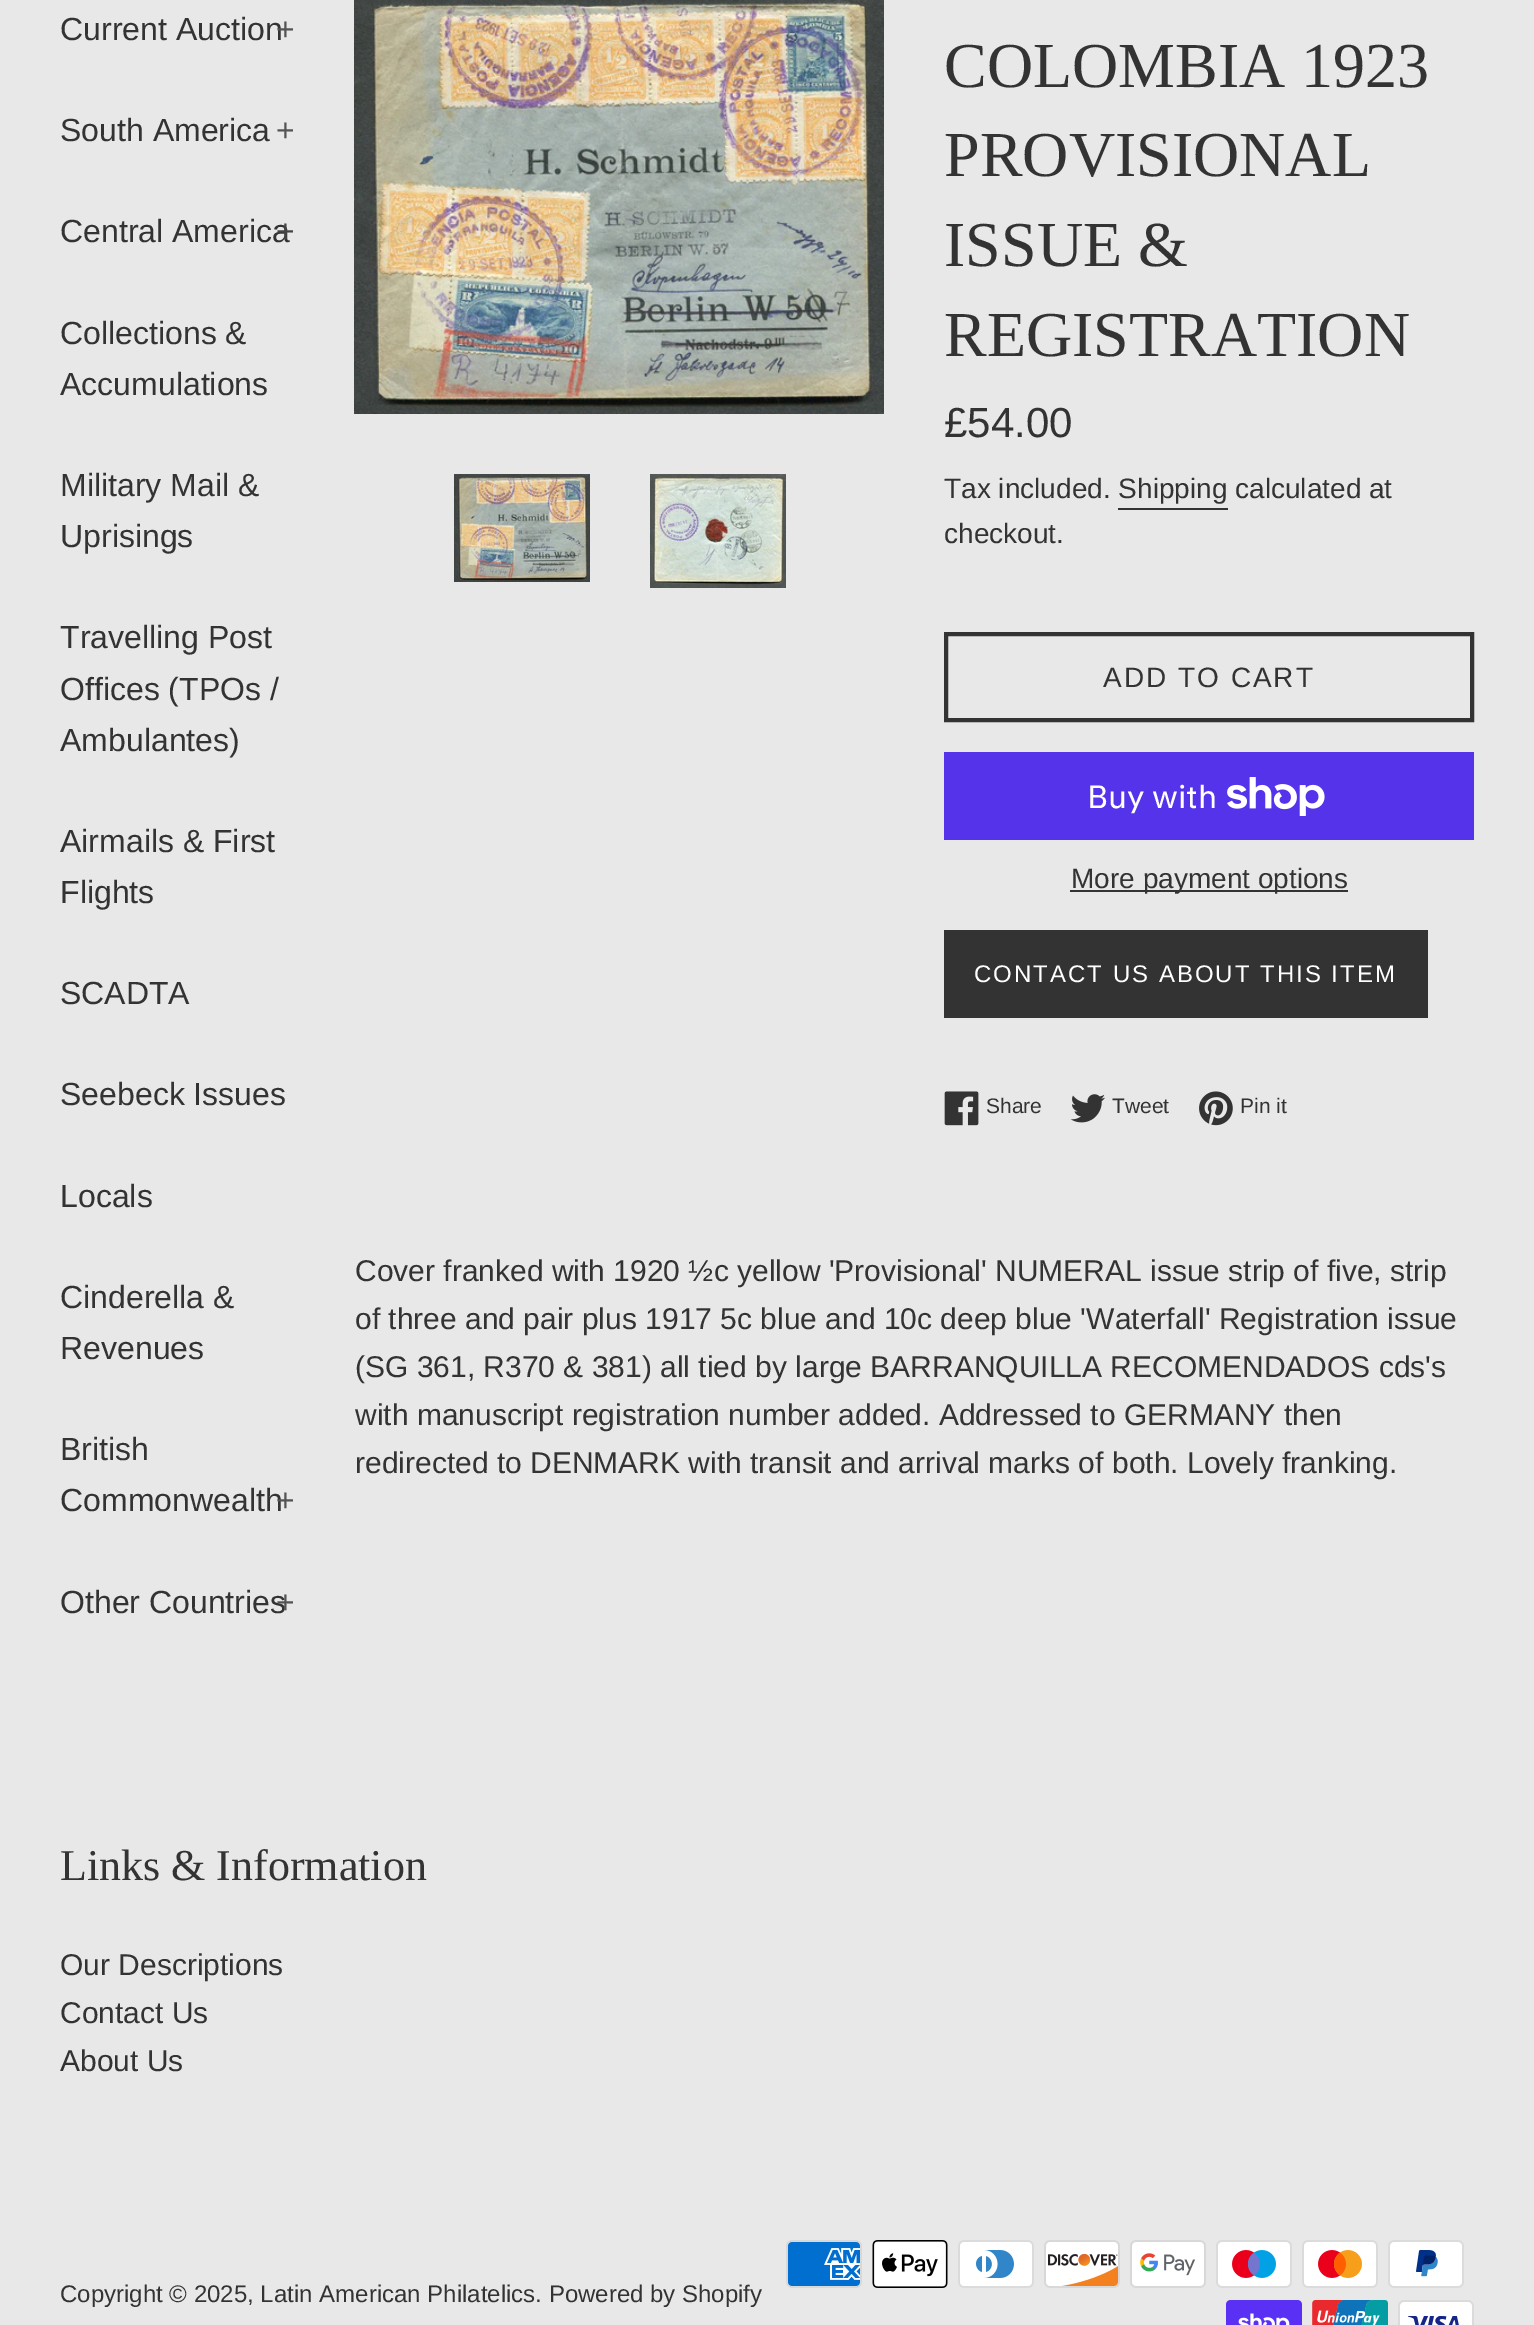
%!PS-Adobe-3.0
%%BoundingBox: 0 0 1534 2325
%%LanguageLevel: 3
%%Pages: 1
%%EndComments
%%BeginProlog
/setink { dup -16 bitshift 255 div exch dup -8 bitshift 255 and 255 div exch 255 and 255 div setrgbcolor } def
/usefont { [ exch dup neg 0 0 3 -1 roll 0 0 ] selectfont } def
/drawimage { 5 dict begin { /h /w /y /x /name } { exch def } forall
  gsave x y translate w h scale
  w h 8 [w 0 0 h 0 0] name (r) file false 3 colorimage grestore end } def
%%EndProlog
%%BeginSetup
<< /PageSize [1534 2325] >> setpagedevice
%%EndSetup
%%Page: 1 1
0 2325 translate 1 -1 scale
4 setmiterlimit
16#E8E8E8 setink
0 0 1534 2325 rectfill
/LiberationSans-Regular 32 usefont
16#333333 setink
60 40 moveto (Current Auction) show
16#545454 setink
276 40 moveto (+) show
16#333333 setink
60 141 moveto (South America) show
16#545454 setink
276 141 moveto (+) show
16#333333 setink
60 242 moveto (Central America) show
16#454545 setink
276 242 moveto (+) show
16#333333 setink
[
    [(Collections &) 60 344]
    [(Accumulations) 60 395]
    [(Military Mail &) 60 496]
    [(Uprisings) 60 547]
    [(Travelling Post) 60 648]
    [(Offices \(TPOs /) 60 700]
    [(Ambulantes\)) 60 751]
    [(Airmails & First) 60 852]
    [(Flights) 60 903]
    [(SCADTA) 60 1004]
    [(Seebeck Issues) 60 1105]
    [(Locals) 60 1207]
    [(Cinderella &) 60 1308]
    [(Revenues) 60 1359]
    [(British) 60 1460]
    [(Commonwealth) 60 1511]
] { aload pop moveto show } forall
16#545454 setink
276 1511 moveto (+) show
16#333333 setink
60 1613 moveto (Other Countries) show
16#545454 setink
276 1613 moveto (+) show
(img1.raw) 354 0 530 414 drawimage
(img2.raw) 454 474 136 108 drawimage
(img3.raw) 650 474 136 114 drawimage
/LiberationSerif-Regular 64 usefont
16#333333 setink
[
    [(COLOMBIA 1923) 944 87]
    [(PROVISIONAL) 944 176]
    [(ISSUE &) 944 266]
    [(REGISTRATION) 944 356]
] { aload pop moveto show } forall
/LiberationSans-Regular 42 usefont
944 437 moveto (£54.00) show
/LiberationSans-Regular 28 usefont
944 498 moveto (Tax included. Shipping calculated at) show
1118 508 110 2 rectfill
944 543 moveto (checkout.) show
4 setlinewidth
946 634 526 86 rectstroke
1103 687 moveto 2 0 (ADD TO CART) ashow
16#5433EB setink
944 752 530 88 rectfill
/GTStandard-Regular 32 usefont
16#FFFFFF setink
1087 808 moveto (Buy with) show
(img4.raw) 1227 777 98 39 drawimage
16#333333 setink
1070 890 278 2 rectfill
/LiberationSans-Regular 28 usefont
1071 888 moveto (More payment options) show
944 930 484 88 rectfill
/LiberationSans-Regular 24 usefont
16#FFFFFF setink
974 982 moveto 2 0 (CONTACT US ABOUT THIS ITEM) ashow
(img5.raw) 944 1091 35 35 drawimage
/LiberationSans-Regular 21 usefont
16#333333 setink
986 1113 moveto (Share) show
(img6.raw) 1070 1094 35 29 drawimage
1112 1113 moveto (Tweet) show
(img7.raw) 1199 1091 34 35 drawimage
1240 1113 moveto (Pin it) show
/LiberationSans-Regular 30 usefont
[
    [(Cover franked with 1920 ½c yellow 'Provisional' NUMERAL issue strip of five, strip) 355 1281]
    [(of three and pair plus 1917 5c blue and 10c deep blue 'Waterfall' Registration issue) 355 1329]
    [(\(SG 361, R370 & 381\) all tied by large BARRANQUILLA RECOMENDADOS cds's) 355 1377]
    [(with manuscript registration number added. Addressed to GERMANY then) 355 1425]
    [(redirected to DENMARK with transit and arrival marks of both. Lovely franking.) 355 1473]
] { aload pop moveto show } forall
/LiberationSerif-Regular 44 usefont
60 1880 moveto (Links & Information) show
/LiberationSans-Regular 30 usefont
[
    [(Our Descriptions) 60 1975]
    [(Contact Us) 60 2023]
    [(About Us) 60 2071]
] { aload pop moveto show } forall
/LiberationSans-Regular 24 usefont
60 2302 moveto (Copyright © 2025, Latin American Philatelics. Powered by Shopify) show
(img8.raw) 786 2240 76 48 drawimage
(img9.raw) 872 2240 76 48 drawimage
(img10.raw) 958 2240 76 48 drawimage
(img11.raw) 1044 2240 76 48 drawimage
(img12.raw) 1130 2240 76 48 drawimage
(img13.raw) 1216 2240 76 48 drawimage
(img14.raw) 1302 2240 76 48 drawimage
(img15.raw) 1388 2240 76 48 drawimage
(img16.raw) 1226 2300 76 25 drawimage
(img17.raw) 1312 2300 76 25 drawimage
(img18.raw) 1398 2300 76 25 drawimage
showpage
%%EOF
